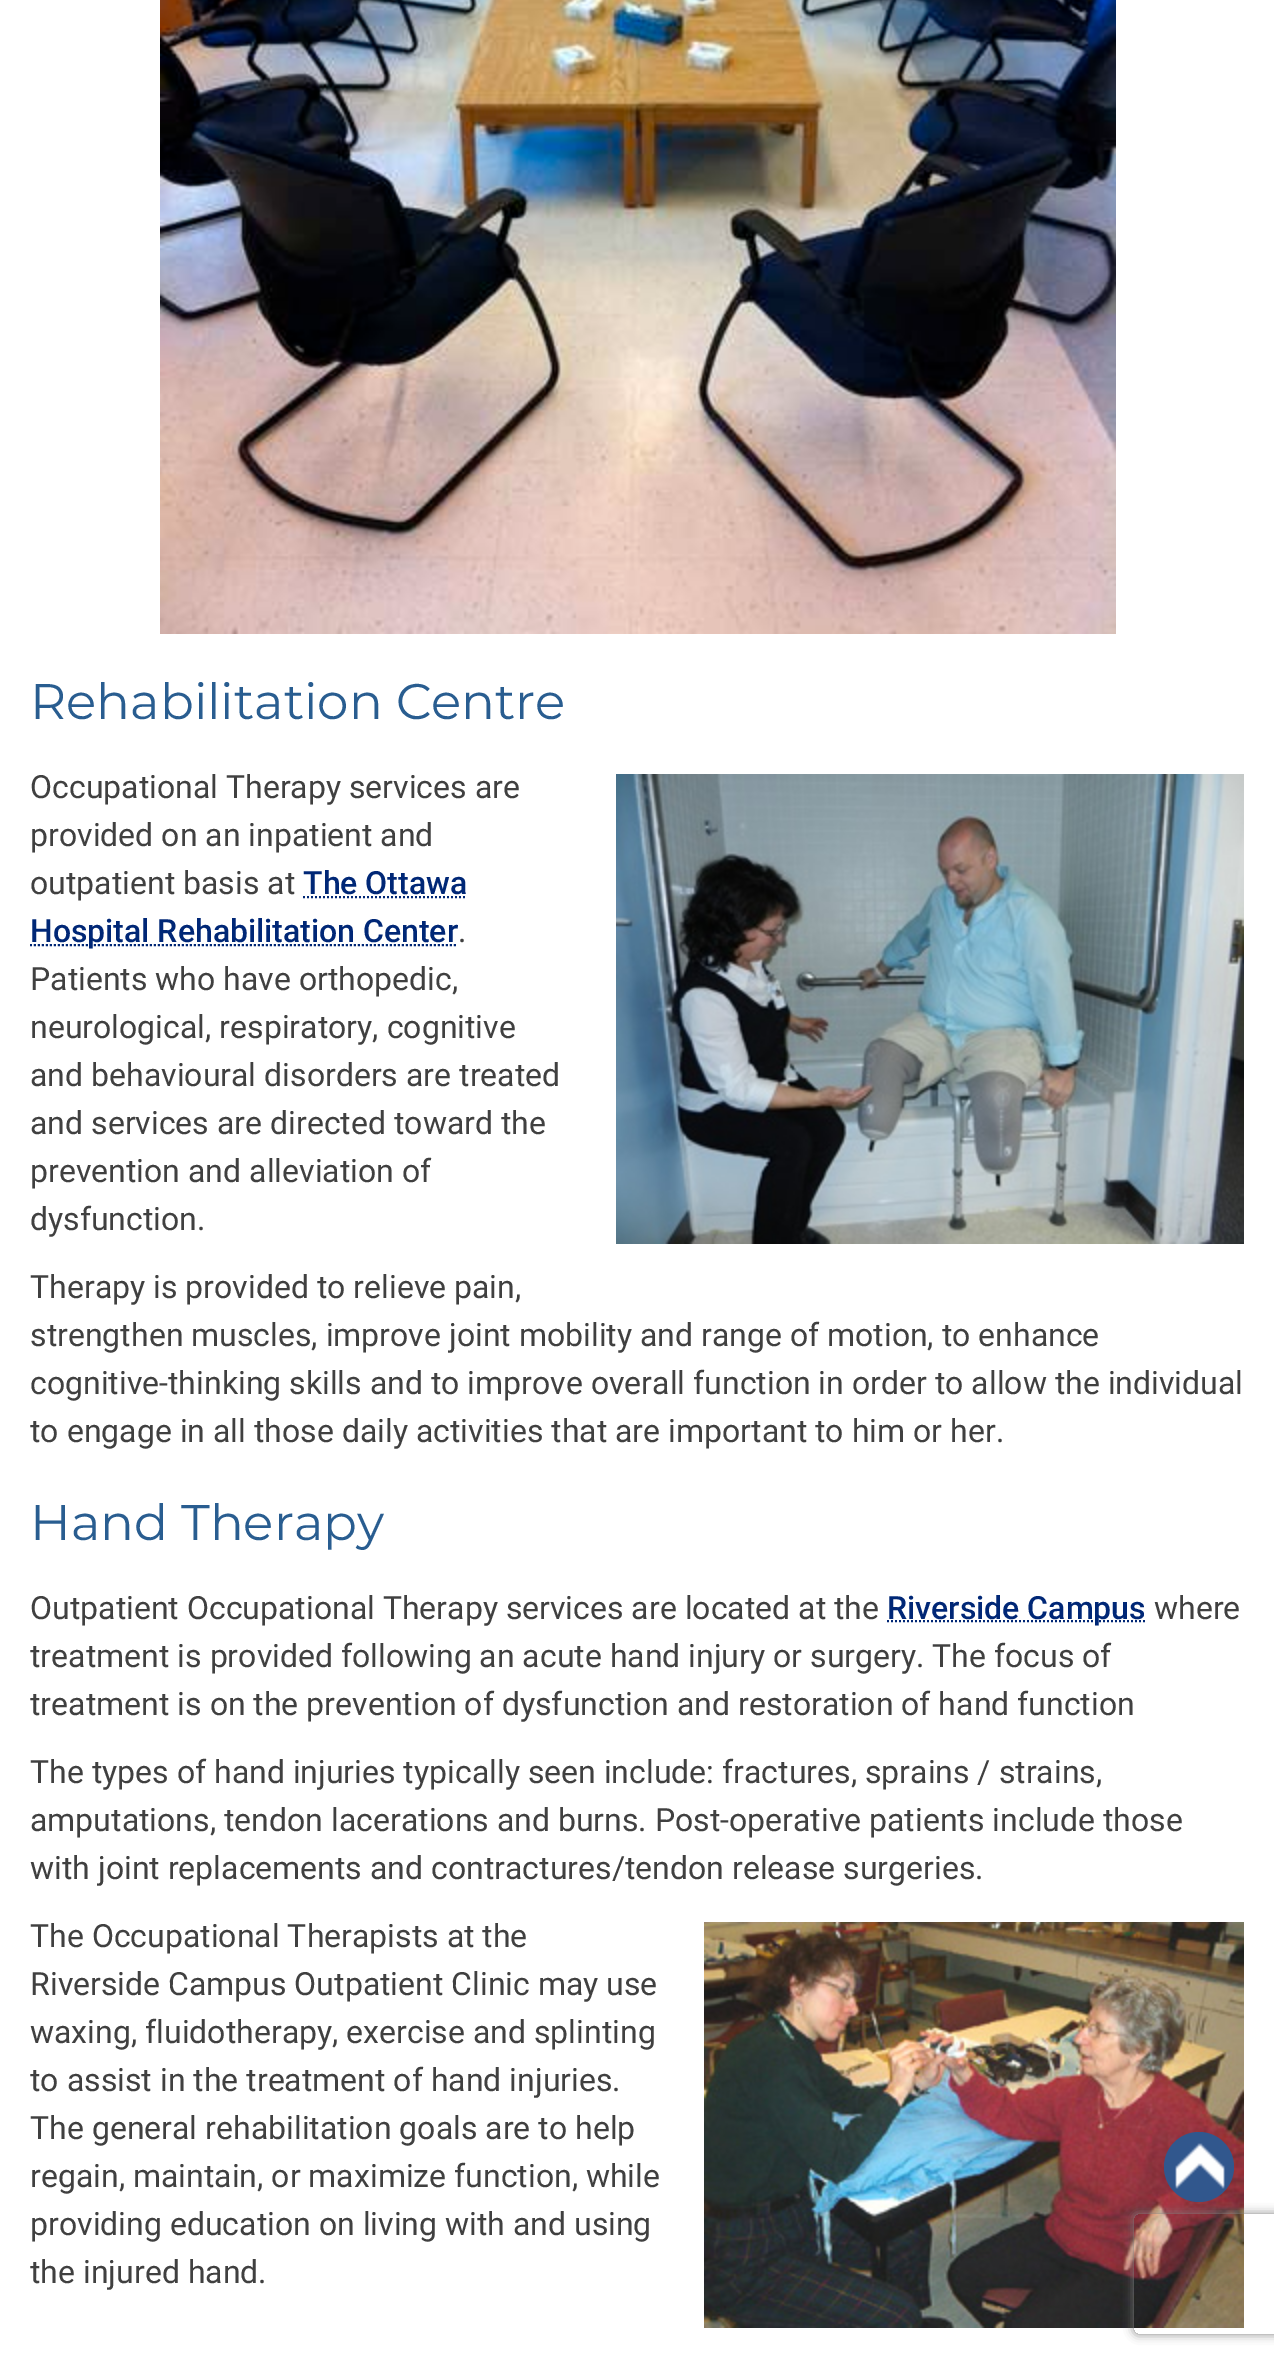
%!PS-Adobe-3.0
%%BoundingBox: 0 0 1274 2361
%%LanguageLevel: 3
%%Pages: 1
%%EndComments
%%BeginProlog
/setink { dup -16 bitshift 255 div exch dup -8 bitshift 255 and 255 div exch 255 and 255 div setrgbcolor } def
/usefont { [ exch dup neg 0 0 3 -1 roll 0 0 ] selectfont } def
/setalpha { dup .setfillconstantalpha .setstrokeconstantalpha } def
/disc { newpath 0 360 arc closepath } def
/rrect { 5 dict begin { /r /h /w /y /x } { exch def } forall
  x r add y moveto x w add y 2 copy h add r arct x w add y h add x 1 index r arct
  x y h add x y r arct x y 2 copy exch w add exch r arct closepath end } def
/softshadow { 12 dict begin { /a /b /q /h /w /y /x } { exch def } forall gsave /was 0 def
  9 -2 -9 { dup b mul 4 div /e exch def 1 sub .425 mul 2.718 exch exp 1 add a .99 .min exch div /now exch def
    1 1 now sub 1 was sub div sub setalpha /was now def
    w h .min e 2 mul add 0 gt { x e sub y e sub w e 2 mul add h e 2 mul add
      q e add b .6 mul add w h .min 2 div e add .min 0 .max rrect fill } if } for grestore end } def
/drawimage { 5 dict begin { /h /w /y /x /name } { exch def } forall
  gsave x y translate w h scale
  w h 8 [w 0 0 h 0 0] name (r) file false 3 colorimage grestore end } def
%%EndProlog
%%BeginSetup
<< /PageSize [1274 2361] /PageUsesTransparency true >> setpagedevice
%%EndSetup
%%Page: 1 1
0 .pushpdf14devicefilter
0 2361 translate 1 -1 scale
4 setmiterlimit
16#FFFFFF setink
0 0 1274 2361 rectfill
(img1.raw) 160 0 956 634 drawimage
/Montserrat-Regular 50 usefont
16#295D90 setink
30 719 moveto (Rehabilitation Centre) show
/Roboto-Regular 32 usefont
16#404040 setink
30 798 moveto (Occupational Therapy services are) show
(img2.raw) 616 774 628 470 drawimage
30 846 moveto (provided on an inpatient and) show
30 894 moveto (outpatient basis at) show
/Roboto-Medium 32 usefont
16#002776 setink
303 894 moveto (The Ottawa) show
2 setlinewidth
[2 2] 0 setdash
303 897 moveto 467 897 lineto stroke
30 945 moveto 458 945 lineto stroke
30 942 moveto (Hospital Rehabilitation Center) show
/Roboto-Regular 32 usefont
16#404040 setink
[
    [(.) 458 942]
    [(Patients who have orthopedic,) 30 990]
    [(neurological, respiratory, cognitive) 30 1038]
    [(and behavioural disorders are treated) 30 1086]
    [(and services are directed toward the) 30 1134]
    [(prevention and alleviation of) 30 1182]
    [(dysfunction.) 30 1230]
    [(Therapy is provided to relieve pain,) 30 1298]
    [(strengthen muscles, improve joint mobility and range of motion, to enhance) 30 1346]
    [(cognitive-thinking skills and to improve overall function in order to allow the individual) 30 1394]
    [(to engage in all those daily activities that are important to him or her.) 30 1442]
] { aload pop moveto show } forall
/Montserrat-Regular 50 usefont
16#295D90 setink
30 1540 moveto (Hand Therapy) show
/Roboto-Regular 32 usefont
16#404040 setink
30 1619 moveto (Outpatient Occupational Therapy services are located at the) show
16#002776 setink
887 1621 moveto 1145.5 1621 lineto stroke
/Roboto-Medium 32 usefont
887 1619 moveto (Riverside Campus) show
/Roboto-Regular 32 usefont
16#404040 setink
[
    [(where) 1154 1619]
    [(treatment is provided following an acute hand injury or surgery. The focus of) 30 1667]
    [(treatment is on the prevention of dysfunction and restoration of hand function) 30 1715]
    [(The types of hand injuries typically seen include: fractures, sprains / strains,) 30 1783]
    [(amputations, tendon lacerations and burns. Post-operative patients include those) 30 1831]
    [(with joint replacements and contractures/tendon release surgeries.) 30 1879]
    [(The Occupational Therapists at the) 30 1947]
] { aload pop moveto show } forall
(img3.raw) 704 1922 540 406 drawimage
[
    [(Riverside Campus Outpatient Clinic may use) 30 1995]
    [(waxing, fluidotherapy, exercise and splinting) 30 2043]
    [(to assist in the treatment of hand injuries.) 30 2091]
    [(The general rehabilitation goals are to help) 30 2139]
    [(regain, maintain, or maximize function, while) 30 2187]
    [(providing education on living with and using) 30 2235]
    [(the injured hand.) 30 2283]
] { aload pop moveto show } forall
gsave
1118 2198 moveto 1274 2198 lineto 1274 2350 lineto 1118 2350 lineto closepath 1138 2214 moveto 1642 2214 lineto 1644 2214 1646 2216 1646 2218 curveto 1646 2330 lineto 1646 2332 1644 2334 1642 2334 curveto 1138 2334 lineto 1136 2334 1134 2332 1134 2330 curveto 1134 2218 lineto 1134 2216 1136 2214 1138 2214 curveto closepath eoclip newpath
16#808080 setink
1134 2214 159 120 4 5 1 softshadow
grestore
0.99 setalpha
16#30578E setink
1199 2167 35 disc fill
1 setalpha
(img4.raw) 1175 2143 50 46 drawimage
.poppdf14devicefilter showpage
%%EOF
